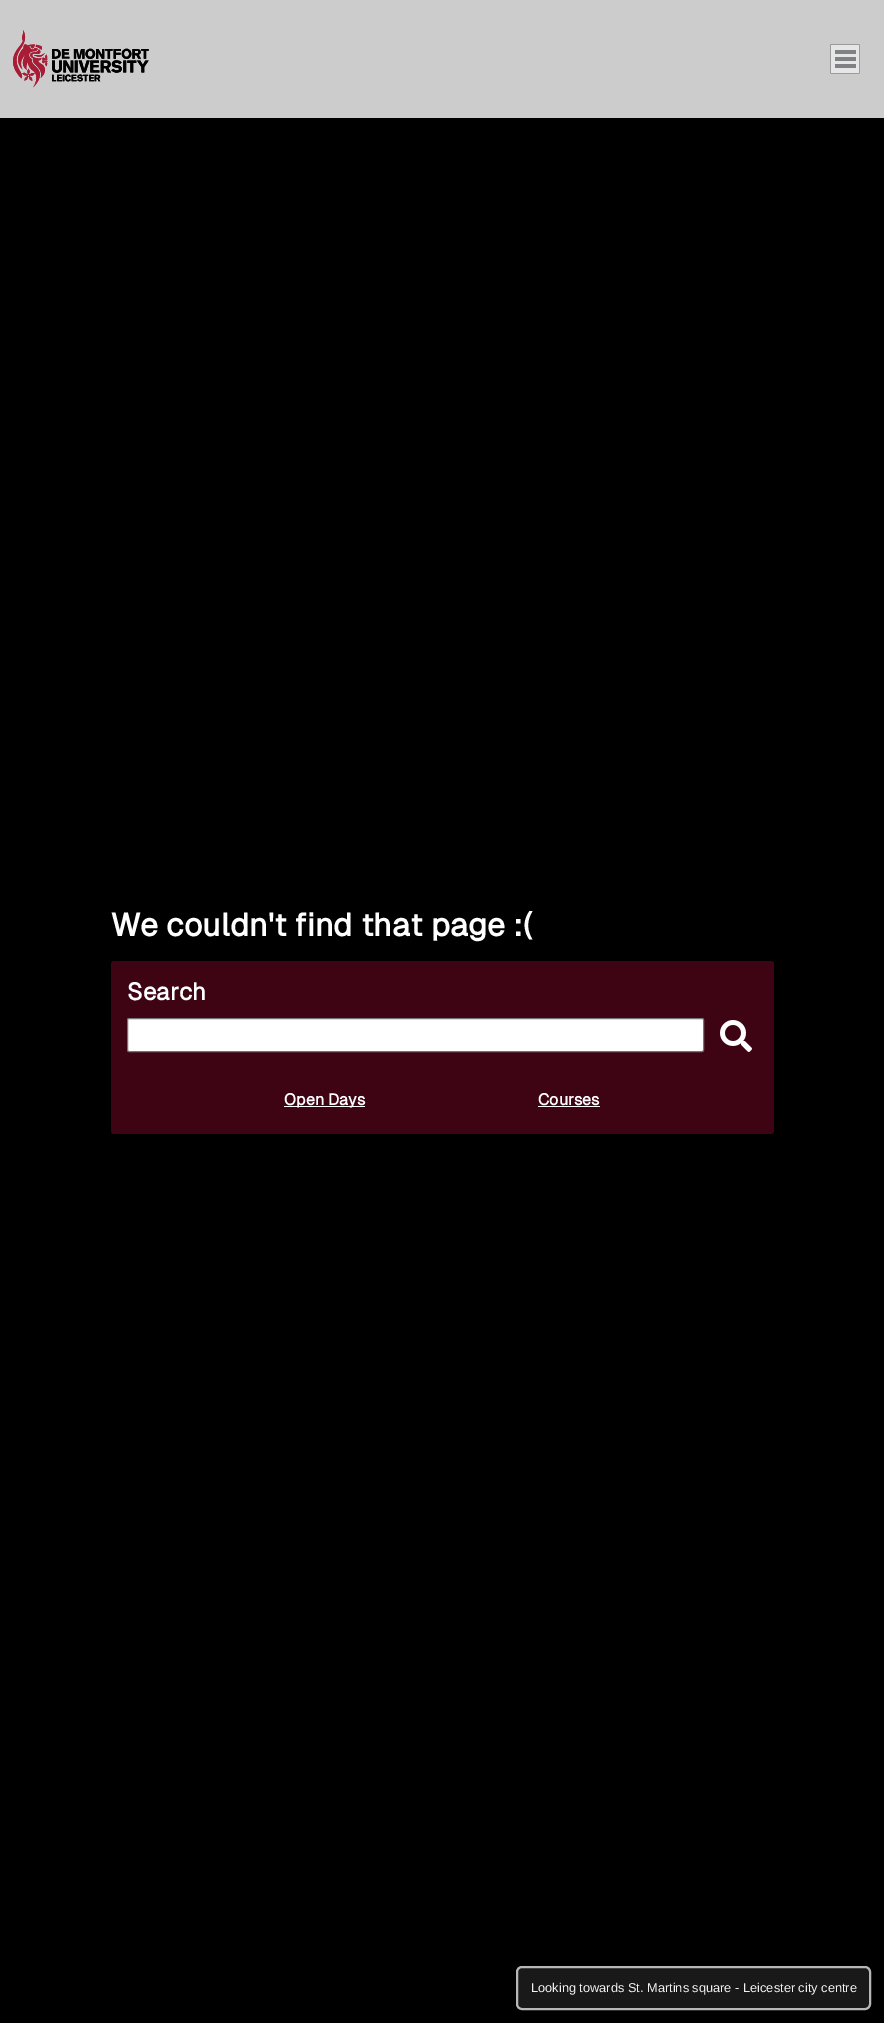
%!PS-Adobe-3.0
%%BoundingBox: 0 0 884 2023
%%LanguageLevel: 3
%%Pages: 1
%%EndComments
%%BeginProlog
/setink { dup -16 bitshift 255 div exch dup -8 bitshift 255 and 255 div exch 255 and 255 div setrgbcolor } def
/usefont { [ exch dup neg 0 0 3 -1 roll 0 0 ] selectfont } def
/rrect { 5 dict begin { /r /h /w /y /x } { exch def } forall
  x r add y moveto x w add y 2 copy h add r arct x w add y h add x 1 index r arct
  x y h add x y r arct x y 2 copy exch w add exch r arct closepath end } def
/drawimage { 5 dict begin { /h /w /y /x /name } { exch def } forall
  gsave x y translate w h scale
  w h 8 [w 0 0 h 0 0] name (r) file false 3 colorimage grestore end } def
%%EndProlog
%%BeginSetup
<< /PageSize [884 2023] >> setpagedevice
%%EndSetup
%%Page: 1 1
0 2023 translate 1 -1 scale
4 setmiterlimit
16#000000 setink
0 0 884 2023 rectfill
16#CCCCCC setink
0 0 884 118 rectfill
(img1.raw) 13 30 136 58 drawimage
(img2.raw) 13 30 136 58 drawimage
(img3.raw) 830 44 30 30 drawimage
/Geist-Bold 32 usefont
16#FFFFFF setink
111 936 moveto (We couldn't find that page :\() show
16#3F0414 setink
111 961 663 173 3 rrect fill
/Geist-Bold 24 usefont
16#FFFFFF setink
127 1000 moveto (Search) show
127.5 1018.5 576 33 1.5 rrect gsave fill grestore
16#767676 setink
stroke
(img4.raw) 720 1020 32 32 drawimage
16#FFFFFF setink
284 1106 81 1 rectfill
/Geist-Bold 16 usefont
284 1105 moveto (Open Days) show
538 1105 moveto (Courses) show
538 1106 62 1 rectfill
16#191919 setink
517 1967 353 42 5 rrect gsave fill grestore
16#B7B7B7 setink
2 setlinewidth
stroke
/LiberationSans-Regular 12.8 usefont
16#F2F2F2 setink
531 1992 moveto (Looking towards St. Martins square - Leicester city centre) show
showpage
%%EOF
